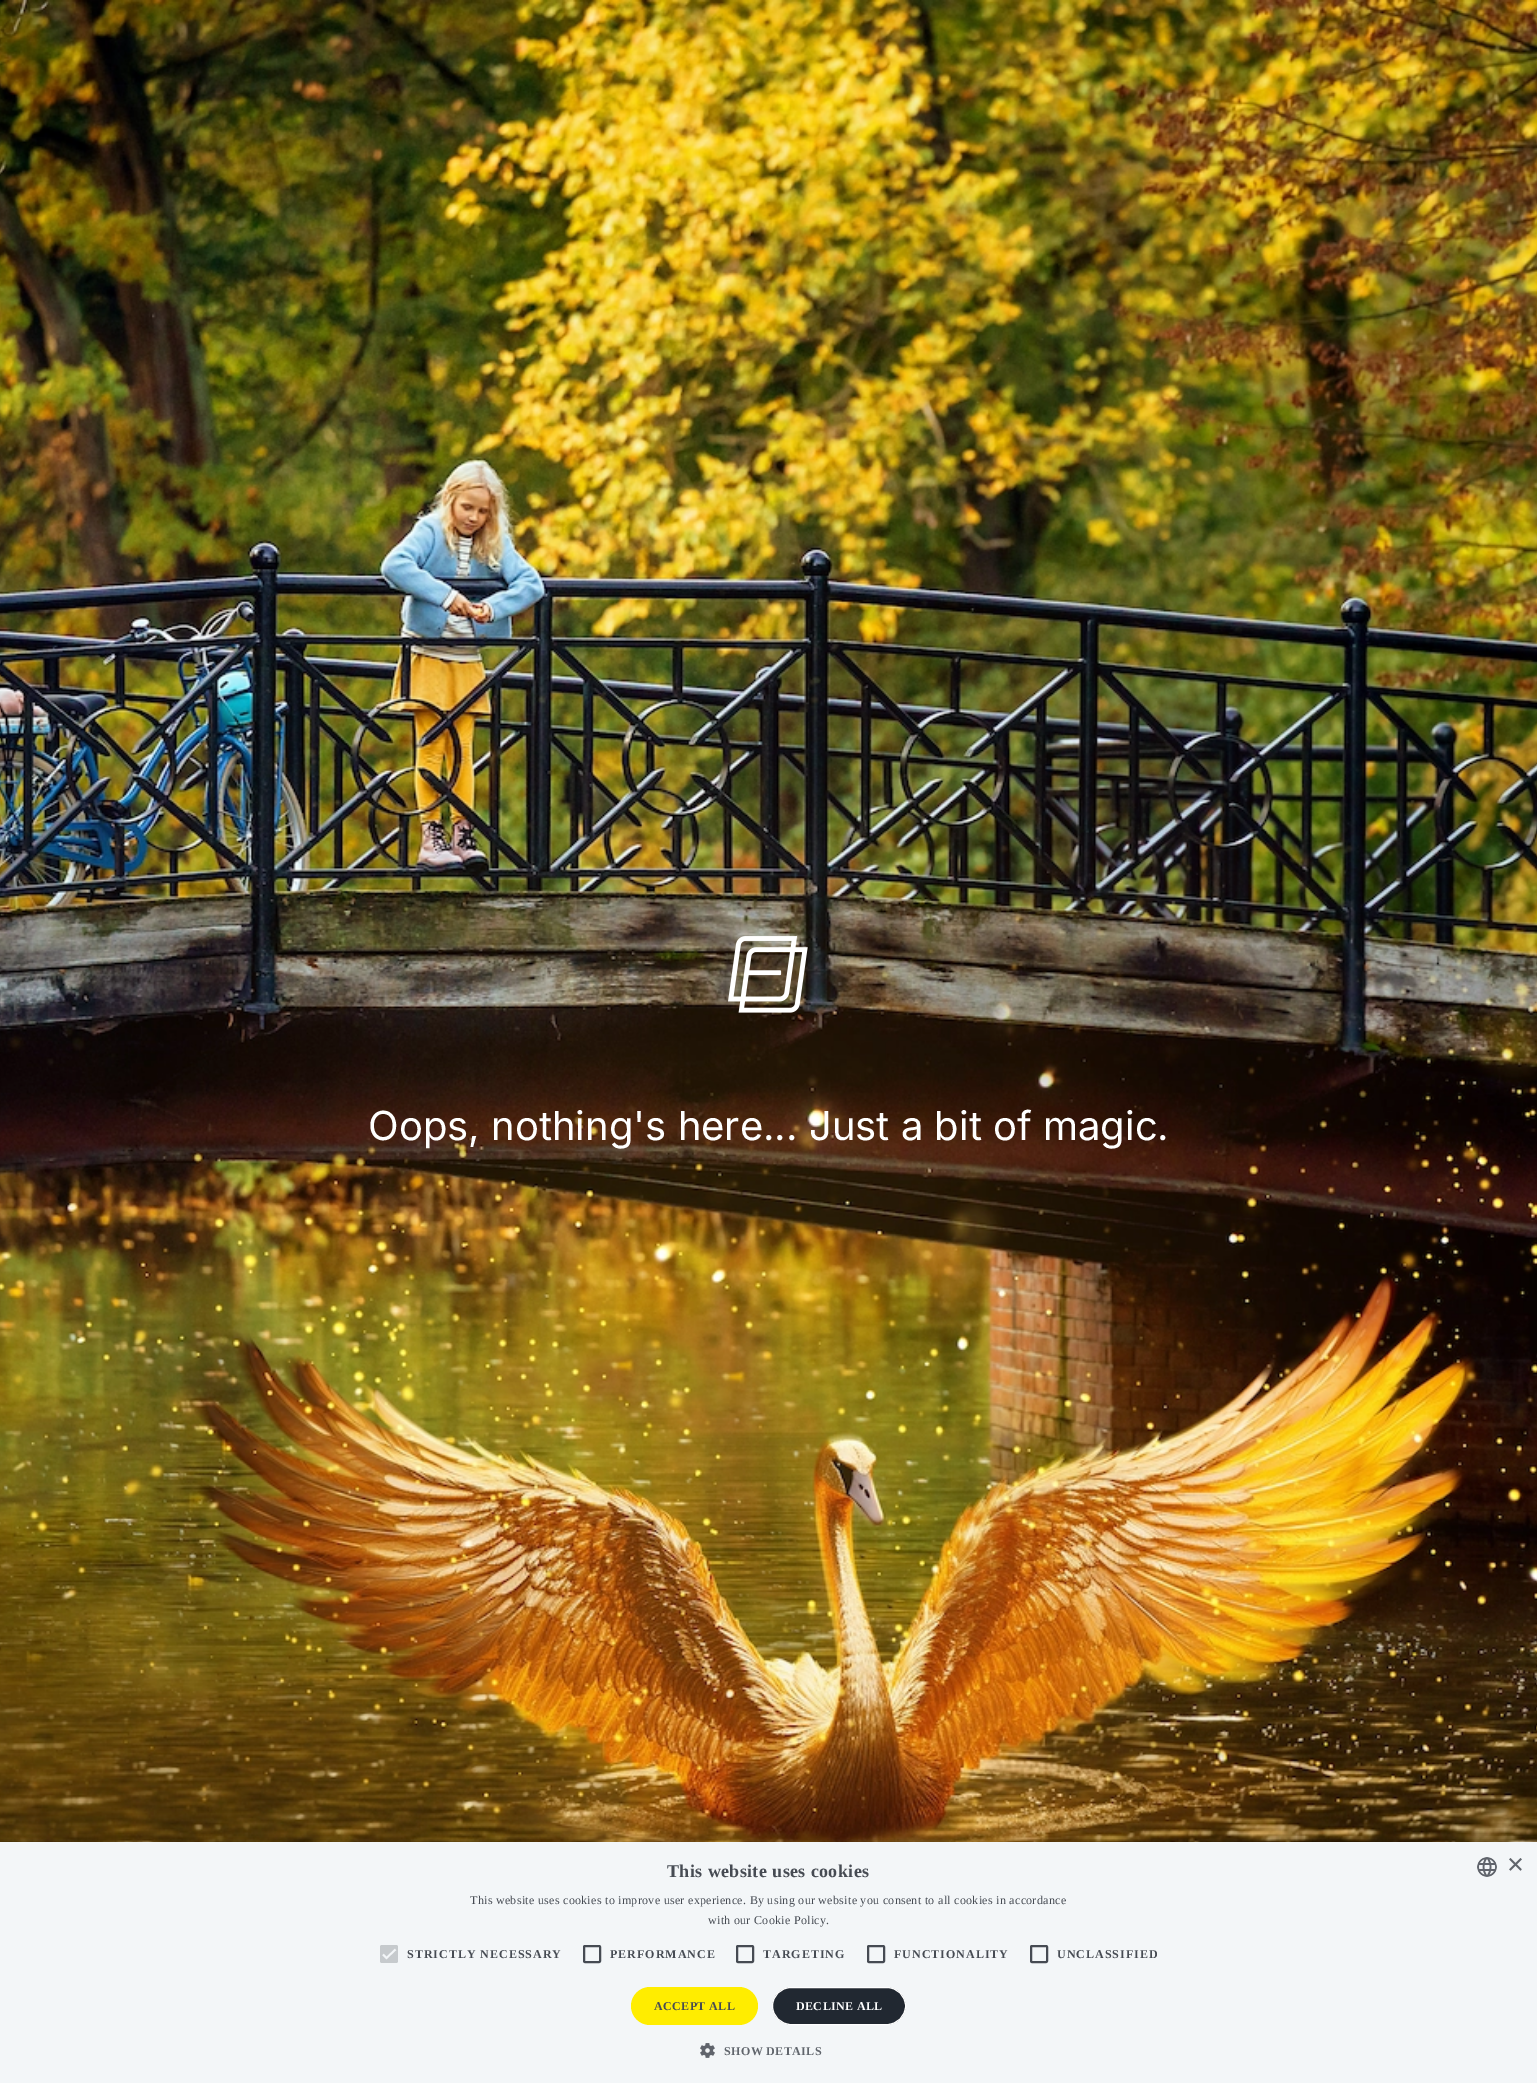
%!PS-Adobe-3.0
%%BoundingBox: 0 0 1537 2083
%%LanguageLevel: 3
%%Pages: 1
%%EndComments
%%BeginProlog
/setink { dup -16 bitshift 255 div exch dup -8 bitshift 255 and 255 div exch 255 and 255 div setrgbcolor } def
/usefont { [ exch dup neg 0 0 3 -1 roll 0 0 ] selectfont } def
/setalpha { dup .setfillconstantalpha .setstrokeconstantalpha } def
/rrect { 5 dict begin { /r /h /w /y /x } { exch def } forall
  x r add y moveto x w add y 2 copy h add r arct x w add y h add x 1 index r arct
  x y h add x y r arct x y 2 copy exch w add exch r arct closepath end } def
/softshadow { 12 dict begin { /a /b /q /h /w /y /x } { exch def } forall gsave /was 0 def
  9 -2 -9 { dup b mul 4 div /e exch def 1 sub .425 mul 2.718 exch exp 1 add a .99 .min exch div /now exch def
    1 1 now sub 1 was sub div sub setalpha /was now def
    w h .min e 2 mul add 0 gt { x e sub y e sub w e 2 mul add h e 2 mul add
      q e add b .6 mul add w h .min 2 div e add .min 0 .max rrect fill } if } for grestore end } def
/drawimage { 5 dict begin { /h /w /y /x /name } { exch def } forall
  gsave x y translate w h scale
  w h 8 [w 0 0 h 0 0] name (r) file false 3 colorimage grestore end } def
%%EndProlog
%%BeginSetup
<< /PageSize [1537 2083] /PageUsesTransparency true >> setpagedevice
%%EndSetup
%%Page: 1 1
0 .pushpdf14devicefilter
0 2083 translate 1 -1 scale
4 setmiterlimit
16#FFFFFF setink
0 0 1537 2083 rectfill
(img1.raw) 0 0 1537 1842 drawimage
(img2.raw) 728 936 80 77 drawimage
/Inter-Regular 40 usefont
368 1140 moveto (Oops, nothing's here... Just a bit of magic.) show
16#000000 setink
1 1844 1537 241 0 4 0.35 softshadow
16#F3F6F8 setink
0 1842 1537 241 rectfill
/LiberationSerif-Bold 18 usefont
16#464B53 setink
667 1877 moveto 0.4 0 (This website uses cookies) ashow
(img3.raw) 1477 1857 20 20 drawimage
/LiberationSans-Regular 29 usefont
16#60656C setink
1507 1874 moveto (×) show
/LiberationSerif-Regular 12 usefont
16#464B53 setink
470 1904 moveto 0.3 0 (This website uses cookies to improve user experience. By using our website you consent to all cookies in accordance) ashow
708 1924 moveto 0.3 0 (with our Cookie Policy.) ashow
16#C6CACD setink
380 1945 18 18 2 rrect fill
16#F3F6F8 setink
1.8 setlinewidth
383 1954.5 moveto 386.5 1958 lineto 395.5 1949.5 lineto stroke
/LiberationSerif-Bold 12 usefont
16#464B53 setink
407 1958 moveto 1 0 (STRICTLY NECESSARY) ashow
2 setlinewidth
584 1946 16 16 1 rrect stroke
610 1958 moveto 1 0 (PERFORMANCE) ashow
737 1946 16 16 1 rrect stroke
763 1958 moveto 1 0 (TARGETING) ashow
868 1946 16 16 1 rrect stroke
894 1958 moveto 1 0 (FUNCTIONALITY) ashow
1031 1946 16 16 1 rrect stroke
1057 1958 moveto 1 0 (UNCLASSIFIED) ashow
16#FFED00 setink
631 1987 127 38 19 rrect fill
16#464B53 setink
654 2010 moveto 0.4 0 (ACCEPT ALL) ashow
16#212831 setink
772.5 1987.5 133 37 18.5 rrect gsave fill grestore
16#FFFFFF setink
1 setlinewidth
stroke
796 2010 moveto 0.4 0 (DECLINE ALL) ashow
(img4.raw) 700 2043 15 15 drawimage
16#60656C setink
724 2055 moveto 0.4 0 (SHOW DETAILS) ashow
.poppdf14devicefilter showpage
%%EOF
